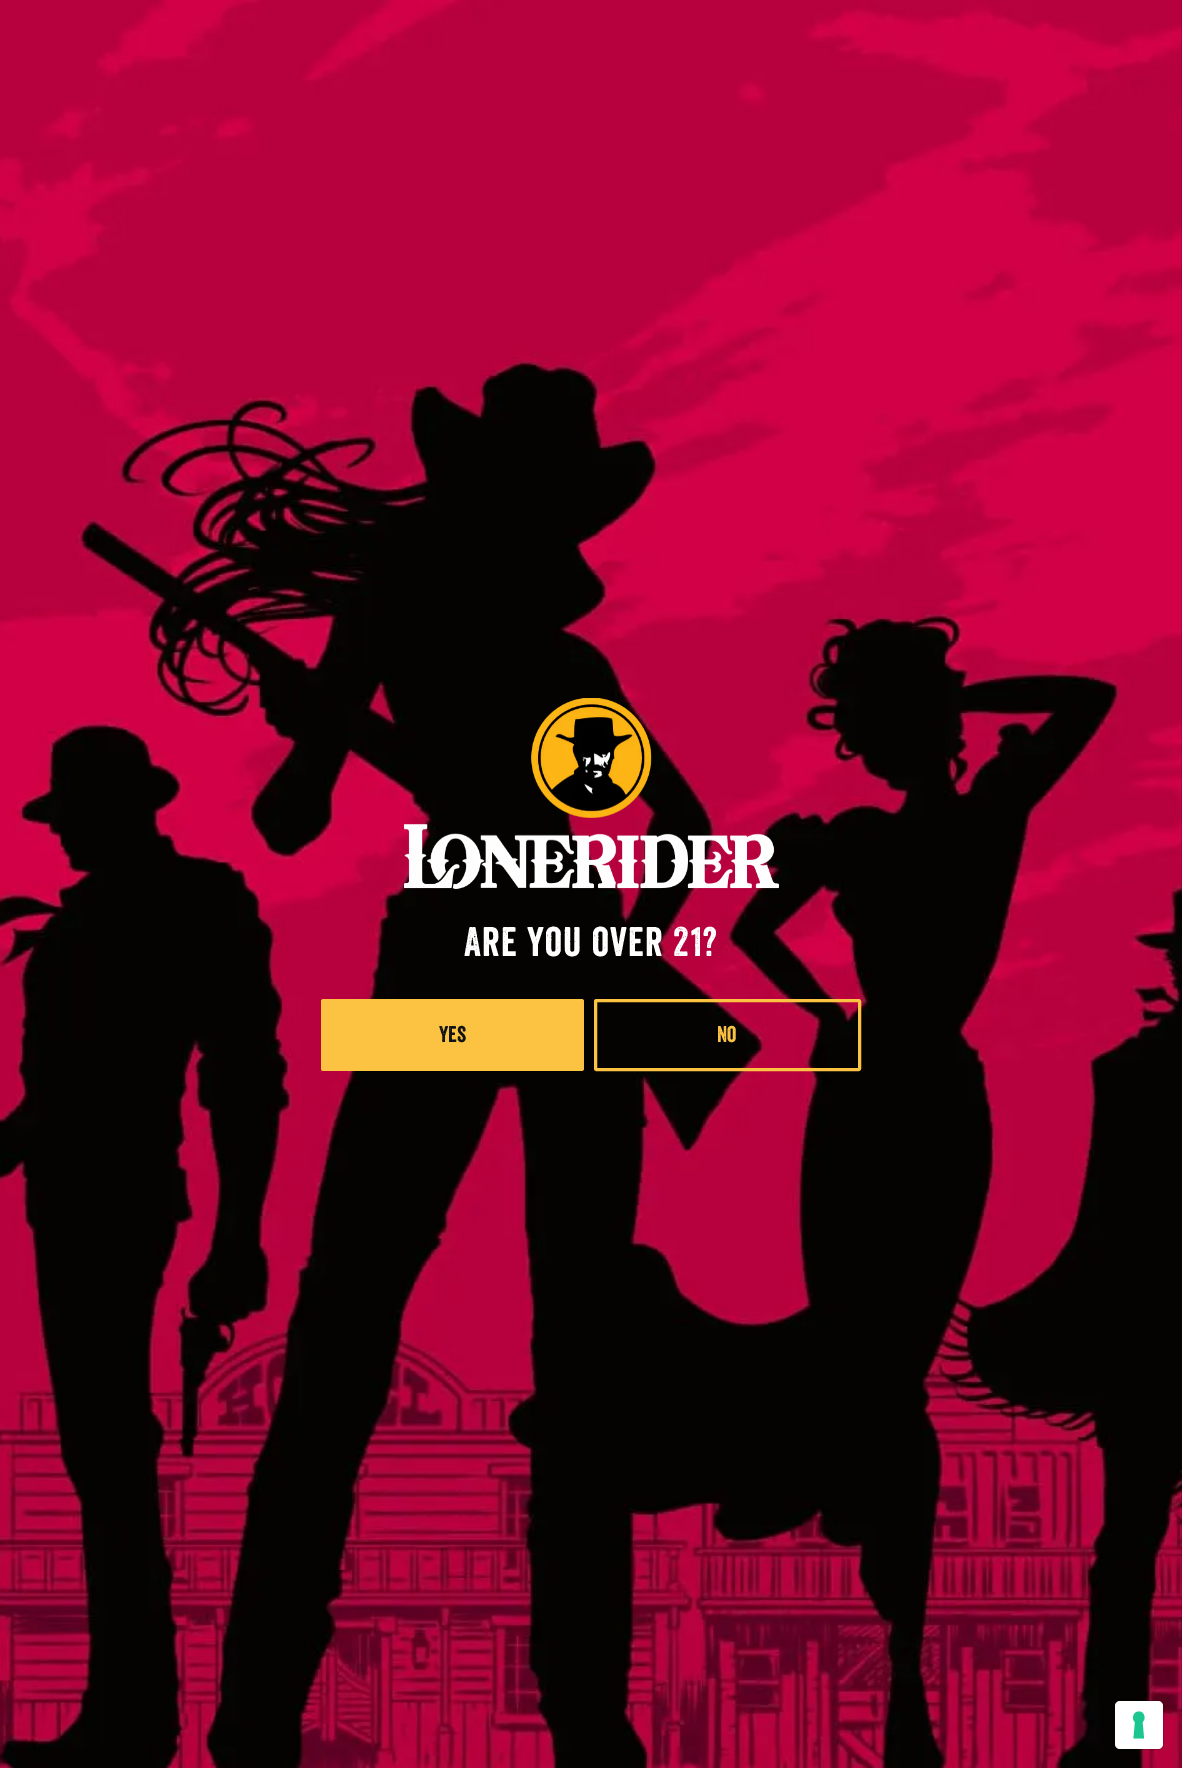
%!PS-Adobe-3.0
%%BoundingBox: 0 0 1182 1768
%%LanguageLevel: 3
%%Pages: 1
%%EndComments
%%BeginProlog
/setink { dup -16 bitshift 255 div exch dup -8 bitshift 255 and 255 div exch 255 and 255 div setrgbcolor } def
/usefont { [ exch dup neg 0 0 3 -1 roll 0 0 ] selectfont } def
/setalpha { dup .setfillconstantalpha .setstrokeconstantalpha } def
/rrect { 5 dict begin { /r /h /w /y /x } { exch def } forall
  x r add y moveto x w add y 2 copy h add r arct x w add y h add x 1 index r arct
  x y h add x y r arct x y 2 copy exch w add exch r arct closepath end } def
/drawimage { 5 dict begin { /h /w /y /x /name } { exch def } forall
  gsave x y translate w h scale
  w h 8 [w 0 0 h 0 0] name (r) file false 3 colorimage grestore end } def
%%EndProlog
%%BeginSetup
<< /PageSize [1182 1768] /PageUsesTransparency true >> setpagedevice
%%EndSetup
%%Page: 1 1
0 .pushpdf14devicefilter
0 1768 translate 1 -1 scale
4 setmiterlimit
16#FFFFFF setink
0 0 1182 1768 rectfill
(img1.raw) 0 0 1182 1768 drawimage
(img2.raw) 404 698 375 191 drawimage
/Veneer-Regular 40 usefont
464 956 moveto 1.25 0 (Are you over 21?) ashow
16#FCC343 setink
321 999 263 72 2.5 rrect fill
/Veneer-Regular 22 usefont
16#121313 setink
439 1042 moveto (Yes) show
16#FCC343 setink
3 setlinewidth
595.5 1000.5 264 69 1 rrect stroke
717 1042 moveto (No) show
0.15 setalpha
16#000000 setink
1 setlinewidth
1114.5 1700.5 49 49 5.5 rrect stroke
1 setalpha
16#FFFFFF setink
1115 1701 48 48 5 rrect fill
16#1CC691 setink
1139 1711.5 moveto 1144 1711.5 1146.5 1718.5 1142.5 1722 curveto 1144 1738.5 lineto 1133.5 1738.5 lineto 1135 1722 lineto 1131 1718.5 1133.5 1711.5 1139 1711.5 curveto closepath eofill
.poppdf14devicefilter showpage
%%EOF
